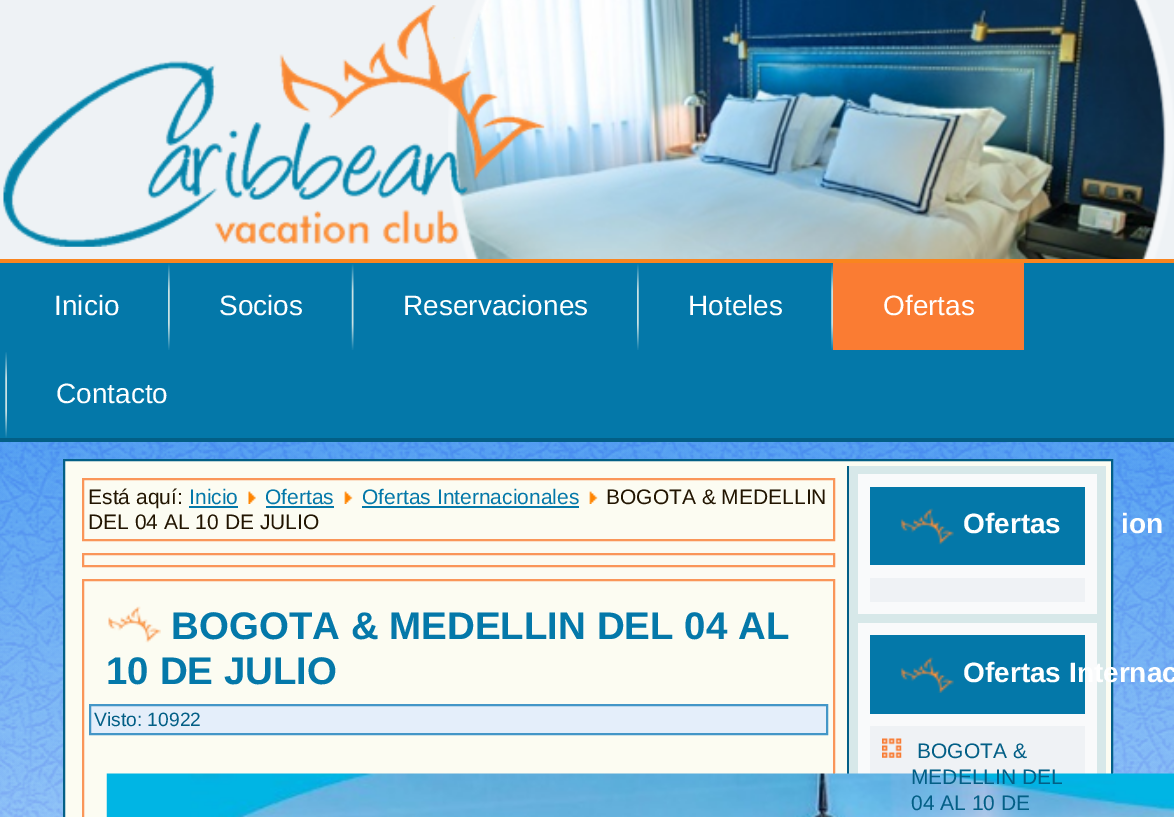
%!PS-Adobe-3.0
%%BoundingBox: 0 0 1174 817
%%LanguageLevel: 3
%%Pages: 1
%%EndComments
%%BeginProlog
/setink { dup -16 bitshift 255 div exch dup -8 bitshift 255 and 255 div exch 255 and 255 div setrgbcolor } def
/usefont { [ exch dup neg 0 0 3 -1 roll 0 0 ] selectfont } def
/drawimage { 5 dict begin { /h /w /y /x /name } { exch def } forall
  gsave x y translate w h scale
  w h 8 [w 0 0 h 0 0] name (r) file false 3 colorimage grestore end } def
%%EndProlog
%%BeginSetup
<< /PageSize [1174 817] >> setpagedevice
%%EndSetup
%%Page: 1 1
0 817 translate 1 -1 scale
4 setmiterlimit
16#FFFFFF setink
0 0 1174 817 rectfill
(img1.raw) 0 442 1174 375 drawimage
16#EEF2F5 setink
0 0 1174 259 rectfill
16#F9851F setink
0 259 1174 4 rectfill
(img3.raw) 448 0 726 259 drawimage
(img4.raw) 453 37 2 2 drawimage
(img2.raw) 3 5 542 242 drawimage
16#0478A9 setink
0 263 1174 175 rectfill
16#035F86 setink
0 438 1174 4 rectfill
/LiberationSans-Regular 28 usefont
16#FFFFFF setink
54 315 moveto (Inicio) show
(img5.raw) 168 264 2 86 drawimage
219 315 moveto (Socios) show
(img6.raw) 351 264 3 86 drawimage
403 315 moveto (Reservaciones) show
(img5.raw) 637 264 2 86 drawimage
688 315 moveto (Hoteles) show
(img7.raw) 831 264 2 86 drawimage
16#FA7C33 setink
833 263 191 87 rectfill
16#FFFFFF setink
883 315 moveto (Ofertas) show
(img8.raw) 5 352 2 86 drawimage
56 403 moveto (Contacto) show
16#FCFCF2 setink
64 460 moveto 1112 460 lineto 1112 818 lineto 64 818 lineto closepath gsave fill grestore
16#035F86 setink
2 setlinewidth
stroke
16#FA9659 setink
83 479 751 61 rectstroke
/LiberationSans-Regular 21 usefont
16#221501 setink
88 504 moveto (Está aquí:) show
16#0478A9 setink
189 504 moveto (Inicio) show
189 506 49 2 rectfill
(img9.raw) 248 491 8 13 drawimage
265 504 moveto (Ofertas) show
266 506 68 2 rectfill
(img10.raw) 344 491 9 13 drawimage
362 504 moveto (Ofertas Internacionales) show
362 506 217 2 rectfill
(img10.raw) 589 491 9 13 drawimage
16#221501 setink
606 504 moveto (BOGOTA & MEDELLIN) show
88 529 moveto (DEL 04 AL 10 DE JULIO) show
16#FA9659 setink
83 554 751 12 rectstroke
83 580 751 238 rectstroke
(img11.raw) 108 606 53 37 drawimage
/LiberationSans-Bold 38.5 usefont
16#0478A9 setink
171 639 moveto (BOGOTA & MEDELLIN DEL 04 AL) show
106 684 moveto (10 DE JULIO) show
16#E4EEFA setink
90 705 moveto 827 705 lineto 827 734 lineto 90 734 lineto closepath gsave fill grestore
16#4396C7 setink
stroke
/LiberationSans-Regular 19.25 usefont
16#035F86 setink
94 726 moveto (Visto: 10922) show
[
    [849 466 257 308 16#D7E8E9]
    [847 466 2 308 16#035F86]
    [858 623 239 151 16#F9FAFB]
    [870 726 215 48 16#EFF2F5]
] { aload pop setink rectfill } forall
(img12.raw) 106 773 1068 44 drawimage
16#F9FAFB setink
858 474 239 140 rectfill
16#0478A9 setink
870 487 215 78 rectfill
(img13.raw) 900 508 54 37 drawimage
/LiberationSans-Bold 28 usefont
16#FFFFFF setink
963 533 moveto (Ofertas) show
1121 533 moveto (ion) show
16#EFF2F5 setink
870 578 215 24 rectfill
16#0478A9 setink
870 635 215 79 rectfill
(img14.raw) 900 656 54 37 drawimage
16#FFFFFF setink
963 682 moveto (Ofertas Internac) show
(img15.raw) 882 738 20 20 drawimage
/LiberationSans-Regular 21 usefont
16#035F86 setink
[
    [(BOGOTA &) 917 758]
    [(MEDELLIN DEL) 911 784]
    [(04 AL 10 DE) 911 810]
] { aload pop moveto show } forall
showpage
%%EOF
